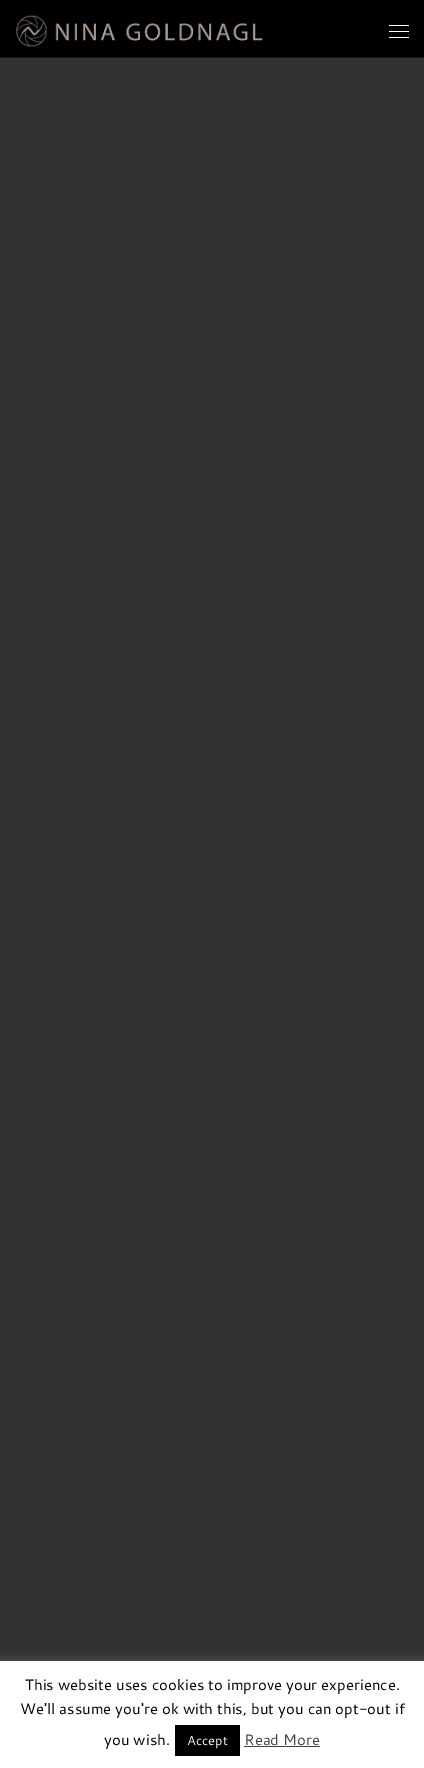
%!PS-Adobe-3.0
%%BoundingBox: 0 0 424 1768
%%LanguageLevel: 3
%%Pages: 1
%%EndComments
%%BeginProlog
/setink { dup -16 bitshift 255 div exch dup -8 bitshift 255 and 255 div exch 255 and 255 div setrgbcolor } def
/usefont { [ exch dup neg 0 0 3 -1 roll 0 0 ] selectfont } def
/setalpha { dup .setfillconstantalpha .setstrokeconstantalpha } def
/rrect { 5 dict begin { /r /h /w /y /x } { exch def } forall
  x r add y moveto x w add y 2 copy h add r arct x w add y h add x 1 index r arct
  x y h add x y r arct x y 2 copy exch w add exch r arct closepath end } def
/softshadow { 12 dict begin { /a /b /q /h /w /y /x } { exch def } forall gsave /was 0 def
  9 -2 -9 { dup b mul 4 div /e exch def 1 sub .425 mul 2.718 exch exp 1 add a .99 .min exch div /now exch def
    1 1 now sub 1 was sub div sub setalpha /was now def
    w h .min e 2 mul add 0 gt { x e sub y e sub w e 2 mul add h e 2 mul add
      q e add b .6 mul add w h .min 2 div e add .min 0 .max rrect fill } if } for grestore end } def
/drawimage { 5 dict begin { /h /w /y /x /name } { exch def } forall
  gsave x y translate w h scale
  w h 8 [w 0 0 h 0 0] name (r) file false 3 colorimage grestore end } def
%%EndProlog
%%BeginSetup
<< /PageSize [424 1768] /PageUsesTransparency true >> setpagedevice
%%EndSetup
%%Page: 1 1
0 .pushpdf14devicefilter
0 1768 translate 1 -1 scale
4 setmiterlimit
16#313131 setink
0 0 424 1768 rectfill
16#000000 setink
0 0 424 57 rectfill
16#3A3A3A setink
0 58 424 1 rectfill
(img1.raw) 16 15 247 32 drawimage
16#FFFFFF setink
389 25 20 1 0.5 rrect fill
389 31 20 1 0.5 rrect fill
389 37 20 1 0.5 rrect fill
16#131313 setink
0 57 424 1 rectfill
16#ACABAB setink
0 1660 424 107 0 5 0.3 softshadow
16#FFFFFF setink
0 1661 424 107 rectfill
/Cantarell-Regular 15 usefont
16#000000 setink
[
    [(This website uses cookies to improve your experience.) 25 1690]
    [(We'll assume you're ok with this, but you can opt-out if) 20 1714]
    [(you wish.) 104 1745]
] { aload pop moveto show } forall
175 1725 65 31 rectfill
/Cantarell-Regular 13 usefont
16#FFFFFF setink
187 1745 moveto (Accept) show
/Cantarell-Regular 15 usefont
16#444444 setink
244 1745 moveto (Read More) show
244 1746 76 1 rectfill
.poppdf14devicefilter showpage
%%EOF
